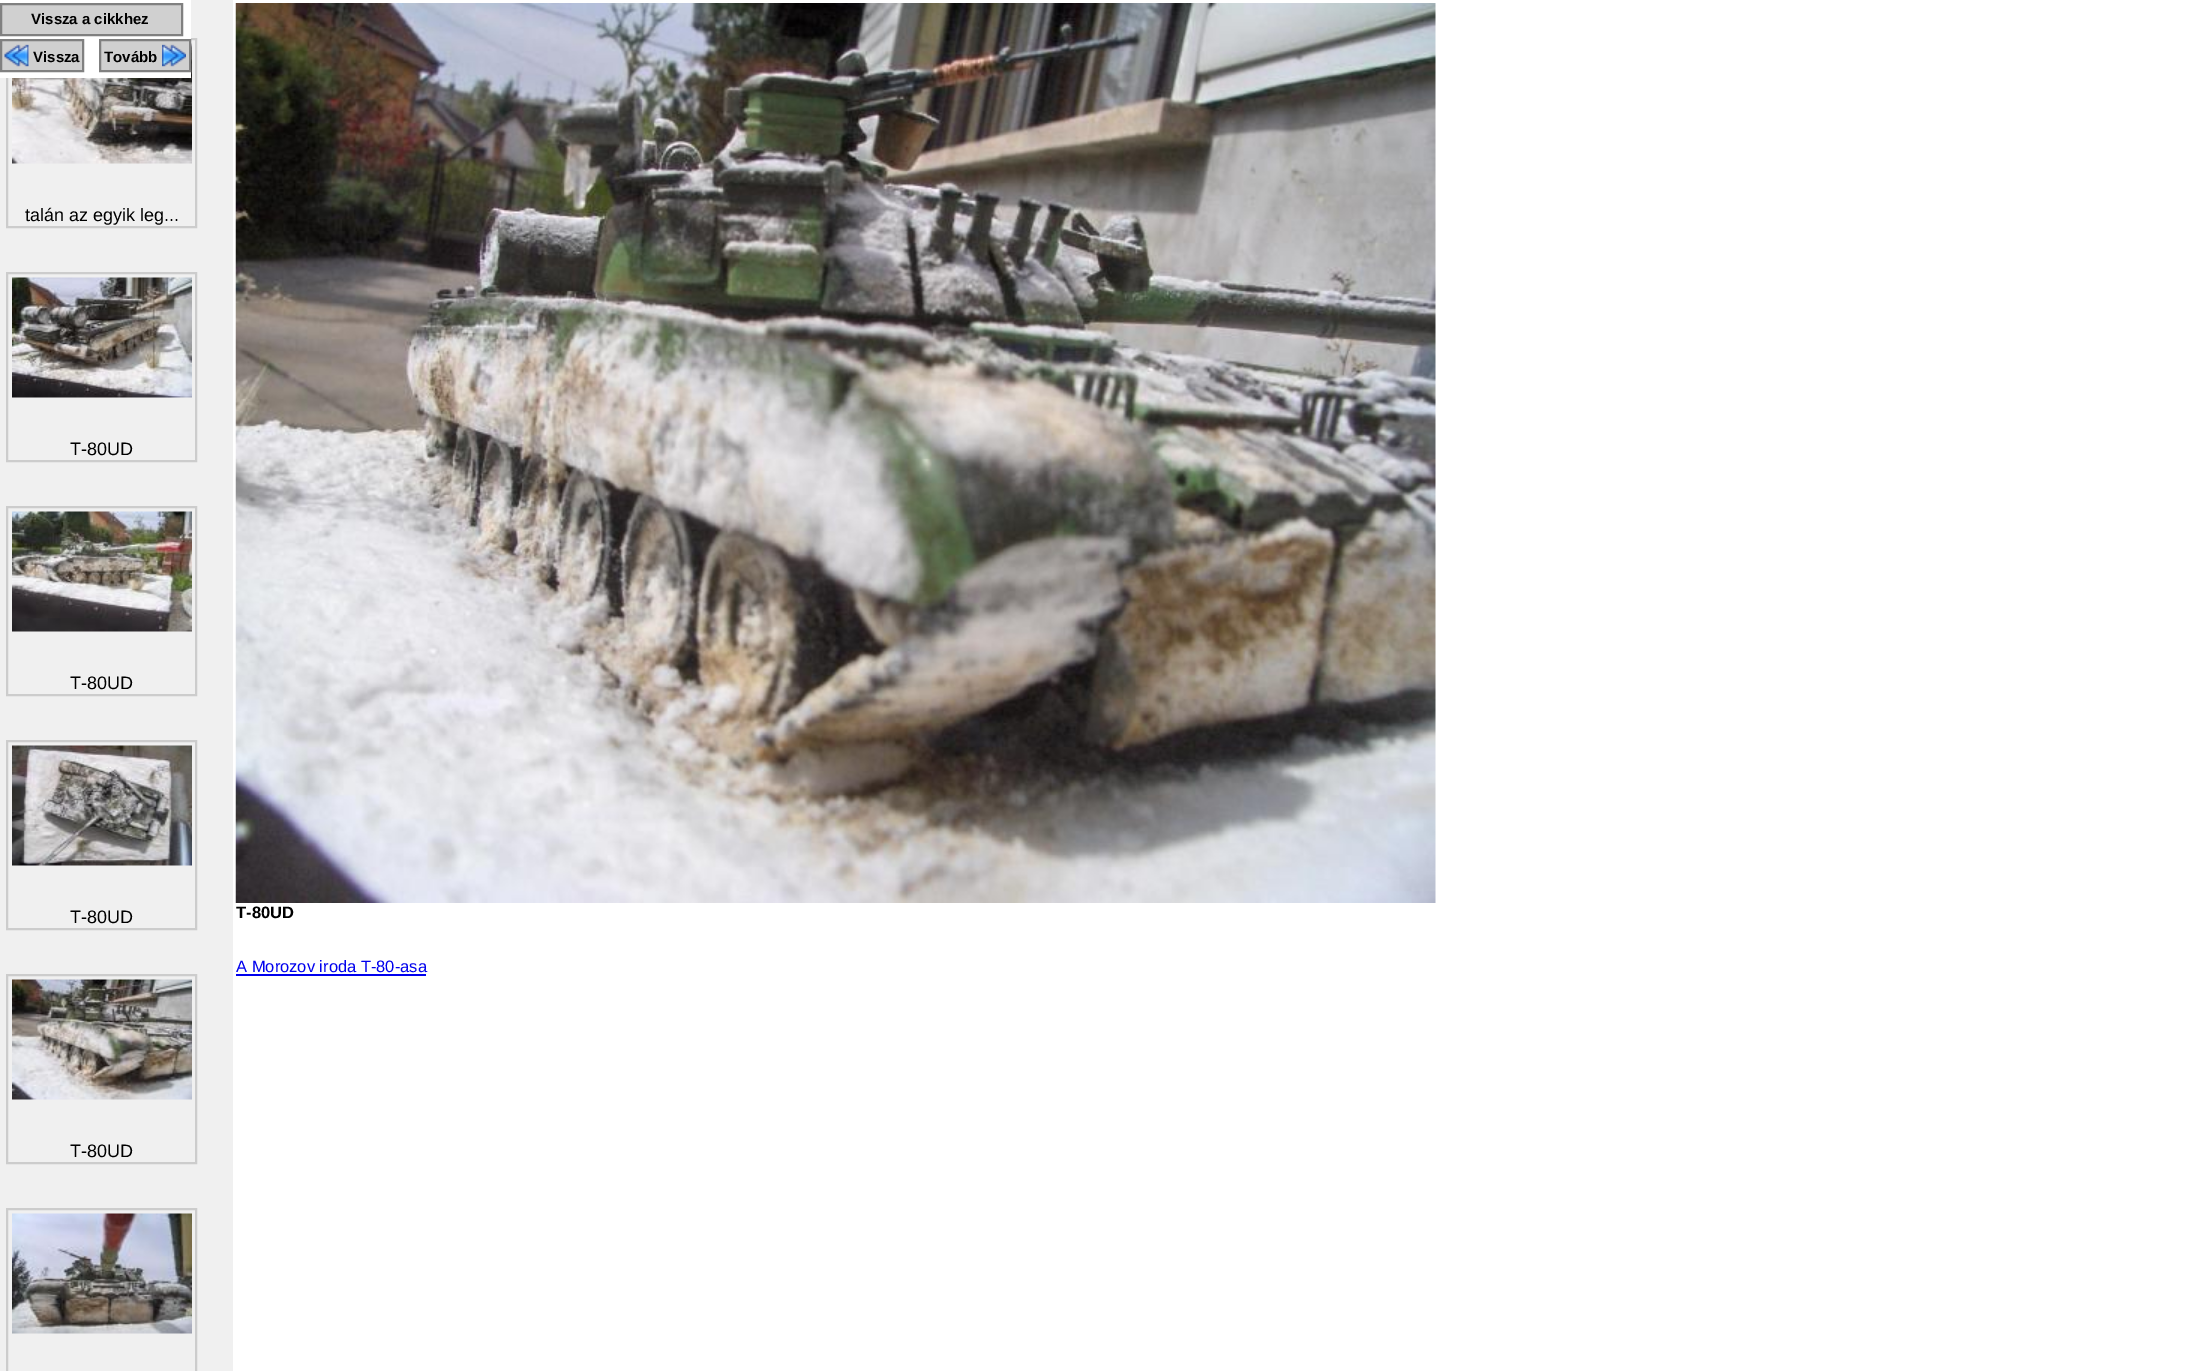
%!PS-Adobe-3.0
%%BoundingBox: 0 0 2202 1371
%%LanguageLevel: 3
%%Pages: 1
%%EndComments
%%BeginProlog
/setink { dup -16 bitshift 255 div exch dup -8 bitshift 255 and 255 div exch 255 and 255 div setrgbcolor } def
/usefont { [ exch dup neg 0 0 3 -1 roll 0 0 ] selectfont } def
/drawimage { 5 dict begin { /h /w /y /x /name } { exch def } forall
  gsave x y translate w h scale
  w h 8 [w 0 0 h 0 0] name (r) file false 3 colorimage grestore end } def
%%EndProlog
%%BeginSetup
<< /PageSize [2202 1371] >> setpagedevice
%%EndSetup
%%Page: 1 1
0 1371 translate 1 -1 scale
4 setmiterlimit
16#FFFFFF setink
0 0 2202 1371 rectfill
16#F0F0F0 setink
0 0 233 1371 rectfill
16#CCCCCC setink
2 setlinewidth
7 39 189 188 rectstroke
(img3.raw) 12 43 180 121 drawimage
16#FFFFFF setink
0 0 191 78 rectfill
16#D0D0D0 setink
1 4 moveto 182 4 lineto 182 35 lineto 1 35 lineto closepath gsave fill grestore
16#808080 setink
stroke
/LiberationSans-Bold 15 usefont
16#000000 setink
31 24 moveto (Vissza a cikkhez) show
16#D0D0D0 setink
1 40 moveto 83 40 lineto 83 71 lineto 1 71 lineto closepath gsave fill grestore
16#808080 setink
stroke
(img1.raw) 4 44 25 23 drawimage
16#000000 setink
33 62 moveto (Vissza) show
16#D0D0D0 setink
100 40 moveto 190 40 lineto 190 71 lineto 100 71 lineto closepath gsave fill grestore
16#808080 setink
stroke
16#000000 setink
104 62 moveto (Tovább) show
(img2.raw) 162 44 24 23 drawimage
/LiberationSans-Regular 18 usefont
25 221 moveto (talán az egyik leg...) show
16#CCCCCC setink
7 273 189 188 rectstroke
(img4.raw) 12 277 180 121 drawimage
16#000000 setink
70 455 moveto (T-80UD) show
16#CCCCCC setink
7 507 189 188 rectstroke
(img5.raw) 12 511 180 121 drawimage
16#000000 setink
70 689 moveto (T-80UD) show
16#CCCCCC setink
7 741 189 188 rectstroke
(img6.raw) 12 745 180 121 drawimage
16#000000 setink
70 923 moveto (T-80UD) show
16#CCCCCC setink
7 975 189 188 rectstroke
(img7.raw) 12 979 180 121 drawimage
16#000000 setink
70 1157 moveto (T-80UD) show
16#CCCCCC setink
7 1209 189 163 rectstroke
(img8.raw) 12 1213 180 121 drawimage
(img9.raw) 235 3 1201 900 drawimage
gsave
236 3 1963 1365 rectclip
/LiberationSans-Bold 16.5 usefont
16#000000 setink
236 918 moveto (T-80UD) show
grestore
/LiberationSans-Regular 16.5 usefont
16#0000EE setink
236 972 moveto (A Morozov iroda T-80-asa) show
236 974 190 2 rectfill
showpage
%%EOF
